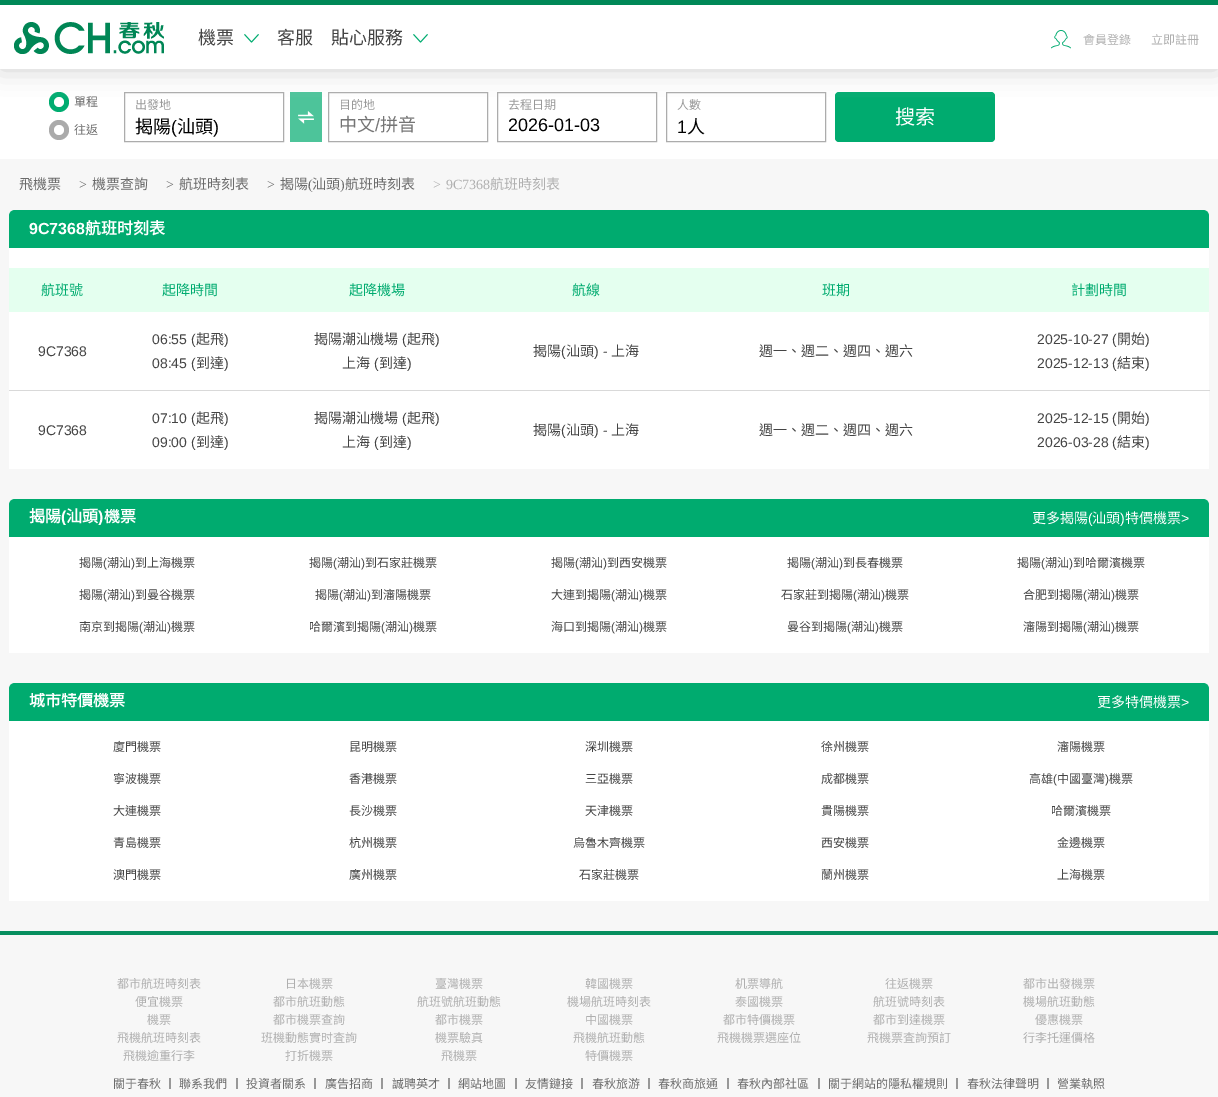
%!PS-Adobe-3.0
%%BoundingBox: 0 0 1218 1097
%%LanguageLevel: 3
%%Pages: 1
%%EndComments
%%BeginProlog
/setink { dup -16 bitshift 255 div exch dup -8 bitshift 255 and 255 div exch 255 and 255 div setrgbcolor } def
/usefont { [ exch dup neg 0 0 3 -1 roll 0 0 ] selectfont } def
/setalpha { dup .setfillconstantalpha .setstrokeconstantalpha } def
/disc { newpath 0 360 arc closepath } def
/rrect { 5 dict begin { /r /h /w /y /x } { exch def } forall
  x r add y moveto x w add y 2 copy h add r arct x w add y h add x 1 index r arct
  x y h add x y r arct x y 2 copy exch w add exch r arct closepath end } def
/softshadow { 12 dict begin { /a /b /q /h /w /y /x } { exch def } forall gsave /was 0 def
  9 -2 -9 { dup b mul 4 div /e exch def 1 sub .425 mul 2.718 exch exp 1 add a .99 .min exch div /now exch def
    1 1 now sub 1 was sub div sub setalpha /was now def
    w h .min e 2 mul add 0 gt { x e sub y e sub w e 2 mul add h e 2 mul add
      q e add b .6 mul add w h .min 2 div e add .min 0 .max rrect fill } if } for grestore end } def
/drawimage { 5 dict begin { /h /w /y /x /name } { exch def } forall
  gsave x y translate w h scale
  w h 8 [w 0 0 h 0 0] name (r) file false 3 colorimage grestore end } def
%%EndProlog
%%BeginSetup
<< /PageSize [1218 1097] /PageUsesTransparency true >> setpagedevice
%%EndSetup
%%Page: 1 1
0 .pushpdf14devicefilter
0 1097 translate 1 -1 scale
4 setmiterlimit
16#F7F7F7 setink
0 0 1218 1097 rectfill
16#FFFFFF setink
0 69 1218 90 rectfill
16#00AC70 setink
59 102 10 disc fill
16#FFFFFF setink
59 102 5 disc fill
16#ACACAC setink
124.5 92.5 159 49 rectstroke
16#4DC49A setink
290 92 32 50 rectfill
16#ACACAC setink
328.5 92.5 159 49 rectstroke
497.5 92.5 159 49 rectstroke
666.5 92.5 159 49 rectstroke
16#00AB6F setink
835 92 160 50 4 rrect fill
16#CCCCCC setink
0 0 1218 69 0 12.5 1 softshadow
16#FFFFFF setink
0 5 1218 64 rectfill
16#008857 setink
0 0 1218 5 rectfill
(img1.raw) 14 22 150 32 drawimage
/NotoSansCJKHK-Regular 18 usefont
16#444444 setink
198 44 moveto (機票) show
(img2.raw) 244 34 15 9 drawimage
277 44 moveto (客服) show
331 44 moveto (貼心服務) show
(img2.raw) 413 34 15 9 drawimage
(img3.raw) 1051 30 20 19 drawimage
/NotoSansCJKHK-Regular 12 usefont
16#AFAFAF setink
1083 44 moveto (會員登錄) show
1151 44 moveto (立即註冊) show
16#6B6B6B setink
74 106 moveto (單程) show
16#AAAAAA setink
59 130 10 disc fill
16#6B6B6B setink
74 134 moveto (往返) show
16#FFFFFF setink
59 130 5 disc fill
16#999999 setink
135 109 moveto (出發地) show
/NotoSansCJKHK-Regular 18 usefont
16#000000 setink
135 133 moveto (揭陽) show
/LiberationSans-Regular 18 usefont
171 133 moveto (\() show
/NotoSansCJKHK-Regular 18 usefont
177 133 moveto (汕頭) show
/LiberationSans-Regular 18 usefont
213 133 moveto (\)) show
(img4.raw) 298 111 16 13 drawimage
/NotoSansCJKHK-Regular 12 usefont
16#999999 setink
339 109 moveto (目的地) show
/NotoSansCJKHK-Regular 18 usefont
16#757575 setink
339 131 moveto (中文) show
/LiberationSans-Regular 18 usefont
375 131 moveto (/) show
/NotoSansCJKHK-Regular 18 usefont
380 131 moveto (拼音) show
/NotoSansCJKHK-Regular 12 usefont
16#999999 setink
508 109 moveto (去程日期) show
/LiberationSans-Regular 18 usefont
16#000000 setink
508 131 moveto (2026-01-03) show
/NotoSansCJKHK-Regular 12 usefont
16#999999 setink
677 109 moveto (人數) show
/LiberationSans-Regular 18 usefont
16#000000 setink
677 133 moveto (1) show
/NotoSansCJKHK-Regular 18 usefont
687 133 moveto (人) show
/NotoSansCJKHK-Regular 20 usefont
16#FFFFFF setink
895 124 moveto (搜索) show
/NotoSansCJKHK-Regular 14 usefont
16#6B6B6B setink
19 189 moveto (飛機票) show
/LiberationSerif-Regular 14 usefont
79 189 moveto (>) show
/NotoSansCJKHK-Regular 14 usefont
92 189 moveto (機票查詢) show
/LiberationSerif-Regular 14 usefont
166 189 moveto (>) show
/NotoSansCJKHK-Regular 14 usefont
179 189 moveto (航班時刻表) show
/LiberationSerif-Regular 14 usefont
267 189 moveto (>) show
/NotoSansCJKHK-Regular 14 usefont
280 189 moveto (揭陽) show
/LiberationSerif-Regular 14 usefont
308 189 moveto (\() show
/NotoSansCJKHK-Regular 14 usefont
312 189 moveto (汕頭) show
/LiberationSerif-Regular 14 usefont
340 189 moveto (\)) show
/NotoSansCJKHK-Regular 14 usefont
345 189 moveto (航班時刻表) show
/LiberationSerif-Regular 14 usefont
16#AFAFAF setink
433 189 moveto (>) show
446 189 moveto (9C7368) show
/NotoSansCJKHK-Regular 14 usefont
490 189 moveto (航班時刻表) show
16#00AB6F setink
15 210 moveto 1203 210 lineto 1206.5 210 1209 212.5 1209 216 curveto 1209 248 lineto 9 248 lineto 9 216 lineto 9 212.5 11.5 210 15 210 curveto closepath fill
/LiberationSans-Bold 16 usefont
16#FFFFFF setink
29 234 moveto (9C7368) show
/NotoSansCJKHK-Bold 16 usefont
85 234 moveto (航班时刻表) show
9 248 1200 221 rectfill
16#E4FFEF setink
9 268 1200 44 rectfill
/NotoSansCJKHK-Regular 14 usefont
16#00AB6F setink
[
    [(航班號) 41 295]
    [(起降時間) 162 295]
    [(起降機場) 349 295]
    [(航線) 572 295]
    [(班期) 822 295]
    [(計劃時間) 1071 295]
] { aload pop moveto show } forall
/LiberationSans-Regular 14 usefont
16#444444 setink
38 356 moveto (9C7368) show
152 344 moveto (06:55 \() show
/NotoSansCJKHK-Regular 14 usefont
196 344 moveto (起飛) show
/LiberationSans-Regular 14 usefont
224 344 moveto (\)) show
152 368 moveto (08:45 \() show
/NotoSansCJKHK-Regular 14 usefont
196 368 moveto (到達) show
/LiberationSans-Regular 14 usefont
224 368 moveto (\)) show
/NotoSansCJKHK-Regular 14 usefont
314 344 moveto (揭陽潮汕機場) show
/LiberationSans-Regular 14 usefont
402 344 moveto (\() show
/NotoSansCJKHK-Regular 14 usefont
407 344 moveto (起飛) show
/LiberationSans-Regular 14 usefont
435 344 moveto (\)) show
/NotoSansCJKHK-Regular 14 usefont
342 368 moveto (上海) show
/LiberationSans-Regular 14 usefont
374 368 moveto (\() show
/NotoSansCJKHK-Regular 14 usefont
379 368 moveto (到達) show
/LiberationSans-Regular 14 usefont
407 368 moveto (\)) show
/NotoSansCJKHK-Regular 14 usefont
533 356 moveto (揭陽) show
/LiberationSans-Regular 14 usefont
561 356 moveto (\() show
/NotoSansCJKHK-Regular 14 usefont
566 356 moveto (汕頭) show
/LiberationSans-Regular 14 usefont
594 356 moveto (\) -) show
/NotoSansCJKHK-Regular 14 usefont
611 356 moveto (上海) show
759 356 moveto (週一、週二、週四、週六) show
/LiberationSans-Regular 14 usefont
1037 344 moveto (2025-10-27 \() show
/NotoSansCJKHK-Regular 14 usefont
1117 344 moveto (開始) show
/LiberationSans-Regular 14 usefont
1145 344 moveto (\)) show
1037 368 moveto (2025-12-13 \() show
/NotoSansCJKHK-Regular 14 usefont
1117 368 moveto (結束) show
/LiberationSans-Regular 14 usefont
[
    [(\)) 1145 368]
    [(9C7368) 38 435]
    [(07:10 \() 152 423]
] { aload pop moveto show } forall
/NotoSansCJKHK-Regular 14 usefont
196 423 moveto (起飛) show
/LiberationSans-Regular 14 usefont
224 423 moveto (\)) show
152 447 moveto (09:00 \() show
/NotoSansCJKHK-Regular 14 usefont
196 447 moveto (到達) show
/LiberationSans-Regular 14 usefont
224 447 moveto (\)) show
/NotoSansCJKHK-Regular 14 usefont
314 423 moveto (揭陽潮汕機場) show
/LiberationSans-Regular 14 usefont
402 423 moveto (\() show
/NotoSansCJKHK-Regular 14 usefont
407 423 moveto (起飛) show
/LiberationSans-Regular 14 usefont
435 423 moveto (\)) show
/NotoSansCJKHK-Regular 14 usefont
342 447 moveto (上海) show
/LiberationSans-Regular 14 usefont
374 447 moveto (\() show
/NotoSansCJKHK-Regular 14 usefont
379 447 moveto (到達) show
/LiberationSans-Regular 14 usefont
407 447 moveto (\)) show
/NotoSansCJKHK-Regular 14 usefont
533 435 moveto (揭陽) show
/LiberationSans-Regular 14 usefont
561 435 moveto (\() show
/NotoSansCJKHK-Regular 14 usefont
566 435 moveto (汕頭) show
/LiberationSans-Regular 14 usefont
594 435 moveto (\) -) show
/NotoSansCJKHK-Regular 14 usefont
611 435 moveto (上海) show
759 435 moveto (週一、週二、週四、週六) show
16#D9D9D9 setink
9 390 1201 1 rectfill
/LiberationSans-Regular 14 usefont
16#444444 setink
1037 423 moveto (2025-12-15 \() show
/NotoSansCJKHK-Regular 14 usefont
1117 423 moveto (開始) show
/LiberationSans-Regular 14 usefont
1145 423 moveto (\)) show
1037 447 moveto (2026-03-28 \() show
/NotoSansCJKHK-Regular 14 usefont
1117 447 moveto (結束) show
/LiberationSans-Regular 14 usefont
1145 447 moveto (\)) show
16#00AB6F setink
15 499 moveto 1203 499 lineto 1206.5 499 1209 501.5 1209 505 curveto 1209 537 lineto 9 537 lineto 9 505 lineto 9 501.5 11.5 499 15 499 curveto closepath fill
/NotoSansCJKHK-Bold 16 usefont
16#FFFFFF setink
29 522 moveto (揭陽) show
gsave
29 509 107 16 rectclip
/LiberationSans-Bold 16 usefont
61 522 moveto (\() show
grestore
66 522 moveto (汕頭) show
gsave
29 509 107 16 rectclip
/LiberationSans-Bold 16 usefont
98 522 moveto (\)) show
/NotoSansCJKHK-Bold 16 usefont
104 522 moveto (機票) show
grestore
/NotoSansCJKHK-Regular 14 usefont
1032 523 moveto (更多揭陽) show
/LiberationSans-Regular 14 usefont
1088 523 moveto (\() show
/NotoSansCJKHK-Regular 14 usefont
1092 523 moveto (汕頭) show
/LiberationSans-Regular 14 usefont
1120 523 moveto (\)) show
/NotoSansCJKHK-Regular 14 usefont
1125 523 moveto (特價機票) show
/LiberationSans-Regular 14 usefont
1181 523 moveto (>) show
9 537 1200 116 rectfill
/NotoSansCJKHK-Regular 12 usefont
16#444444 setink
79 567 moveto (揭陽) show
/LiberationSans-Regular 12 usefont
103 567 moveto (\() show
/NotoSansCJKHK-Regular 12 usefont
107 567 moveto (潮汕) show
/LiberationSans-Regular 12 usefont
131 567 moveto (\)) show
/NotoSansCJKHK-Regular 12 usefont
135 567 moveto (到上海機票) show
309 567 moveto (揭陽) show
/LiberationSans-Regular 12 usefont
333 567 moveto (\() show
/NotoSansCJKHK-Regular 12 usefont
337 567 moveto (潮汕) show
/LiberationSans-Regular 12 usefont
361 567 moveto (\)) show
/NotoSansCJKHK-Regular 12 usefont
365 567 moveto (到石家莊機票) show
551 567 moveto (揭陽) show
/LiberationSans-Regular 12 usefont
575 567 moveto (\() show
/NotoSansCJKHK-Regular 12 usefont
579 567 moveto (潮汕) show
/LiberationSans-Regular 12 usefont
603 567 moveto (\)) show
/NotoSansCJKHK-Regular 12 usefont
607 567 moveto (到西安機票) show
787 567 moveto (揭陽) show
/LiberationSans-Regular 12 usefont
811 567 moveto (\() show
/NotoSansCJKHK-Regular 12 usefont
815 567 moveto (潮汕) show
/LiberationSans-Regular 12 usefont
839 567 moveto (\)) show
/NotoSansCJKHK-Regular 12 usefont
843 567 moveto (到長春機票) show
1017 567 moveto (揭陽) show
/LiberationSans-Regular 12 usefont
1041 567 moveto (\() show
/NotoSansCJKHK-Regular 12 usefont
1045 567 moveto (潮汕) show
/LiberationSans-Regular 12 usefont
1069 567 moveto (\)) show
/NotoSansCJKHK-Regular 12 usefont
1073 567 moveto (到哈爾濱機票) show
79 599 moveto (揭陽) show
/LiberationSans-Regular 12 usefont
103 599 moveto (\() show
/NotoSansCJKHK-Regular 12 usefont
107 599 moveto (潮汕) show
/LiberationSans-Regular 12 usefont
131 599 moveto (\)) show
/NotoSansCJKHK-Regular 12 usefont
135 599 moveto (到曼谷機票) show
315 599 moveto (揭陽) show
/LiberationSans-Regular 12 usefont
339 599 moveto (\() show
/NotoSansCJKHK-Regular 12 usefont
343 599 moveto (潮汕) show
/LiberationSans-Regular 12 usefont
367 599 moveto (\)) show
/NotoSansCJKHK-Regular 12 usefont
371 599 moveto (到瀋陽機票) show
551 599 moveto (大連到揭陽) show
/LiberationSans-Regular 12 usefont
611 599 moveto (\() show
/NotoSansCJKHK-Regular 12 usefont
615 599 moveto (潮汕) show
/LiberationSans-Regular 12 usefont
639 599 moveto (\)) show
/NotoSansCJKHK-Regular 12 usefont
643 599 moveto (機票) show
781 599 moveto (石家莊到揭陽) show
/LiberationSans-Regular 12 usefont
853 599 moveto (\() show
/NotoSansCJKHK-Regular 12 usefont
857 599 moveto (潮汕) show
/LiberationSans-Regular 12 usefont
881 599 moveto (\)) show
/NotoSansCJKHK-Regular 12 usefont
885 599 moveto (機票) show
1023 599 moveto (合肥到揭陽) show
/LiberationSans-Regular 12 usefont
1083 599 moveto (\() show
/NotoSansCJKHK-Regular 12 usefont
1087 599 moveto (潮汕) show
/LiberationSans-Regular 12 usefont
1111 599 moveto (\)) show
/NotoSansCJKHK-Regular 12 usefont
1115 599 moveto (機票) show
79 631 moveto (南京到揭陽) show
/LiberationSans-Regular 12 usefont
139 631 moveto (\() show
/NotoSansCJKHK-Regular 12 usefont
143 631 moveto (潮汕) show
/LiberationSans-Regular 12 usefont
167 631 moveto (\)) show
/NotoSansCJKHK-Regular 12 usefont
171 631 moveto (機票) show
309 631 moveto (哈爾濱到揭陽) show
/LiberationSans-Regular 12 usefont
381 631 moveto (\() show
/NotoSansCJKHK-Regular 12 usefont
385 631 moveto (潮汕) show
/LiberationSans-Regular 12 usefont
409 631 moveto (\)) show
/NotoSansCJKHK-Regular 12 usefont
413 631 moveto (機票) show
551 631 moveto (海口到揭陽) show
/LiberationSans-Regular 12 usefont
611 631 moveto (\() show
/NotoSansCJKHK-Regular 12 usefont
615 631 moveto (潮汕) show
/LiberationSans-Regular 12 usefont
639 631 moveto (\)) show
/NotoSansCJKHK-Regular 12 usefont
643 631 moveto (機票) show
787 631 moveto (曼谷到揭陽) show
/LiberationSans-Regular 12 usefont
847 631 moveto (\() show
/NotoSansCJKHK-Regular 12 usefont
851 631 moveto (潮汕) show
/LiberationSans-Regular 12 usefont
875 631 moveto (\)) show
/NotoSansCJKHK-Regular 12 usefont
879 631 moveto (機票) show
1023 631 moveto (瀋陽到揭陽) show
/LiberationSans-Regular 12 usefont
1083 631 moveto (\() show
/NotoSansCJKHK-Regular 12 usefont
1087 631 moveto (潮汕) show
/LiberationSans-Regular 12 usefont
1111 631 moveto (\)) show
/NotoSansCJKHK-Regular 12 usefont
1115 631 moveto (機票) show
16#00AB6F setink
15 683 moveto 1203 683 lineto 1206.5 683 1209 685.5 1209 689 curveto 1209 721 lineto 9 721 lineto 9 689 lineto 9 685.5 11.5 683 15 683 curveto closepath fill
gsave
29 693 96 16 rectclip
/NotoSansCJKHK-Bold 16 usefont
16#FFFFFF setink
29 706 moveto (城市特價機票) show
grestore
/NotoSansCJKHK-Regular 14 usefont
16#FFFFFF setink
1097 707 moveto (更多特價機票) show
/LiberationSans-Regular 14 usefont
1181 707 moveto (>) show
9 721 1200 180 rectfill
/NotoSansCJKHK-Regular 12 usefont
16#444444 setink
[
    [(廈門機票) 113 751]
    [(昆明機票) 349 751]
    [(深圳機票) 585 751]
    [(徐州機票) 821 751]
    [(瀋陽機票) 1057 751]
    [(寧波機票) 113 783]
    [(香港機票) 349 783]
    [(三亞機票) 585 783]
    [(成都機票) 821 783]
    [(高雄) 1029 783]
] { aload pop moveto show } forall
/LiberationSans-Regular 12 usefont
1053 783 moveto (\() show
/NotoSansCJKHK-Regular 12 usefont
1057 783 moveto (中國臺灣) show
/LiberationSans-Regular 12 usefont
1105 783 moveto (\)) show
/NotoSansCJKHK-Regular 12 usefont
[
    [(機票) 1109 783]
    [(大連機票) 113 815]
    [(長沙機票) 349 815]
    [(天津機票) 585 815]
    [(貴陽機票) 821 815]
    [(哈爾濱機票) 1051 815]
    [(青島機票) 113 847]
    [(杭州機票) 349 847]
    [(烏魯木齊機票) 573 847]
    [(西安機票) 821 847]
    [(金邊機票) 1057 847]
    [(澳門機票) 113 879]
    [(廣州機票) 349 879]
    [(石家莊機票) 579 879]
    [(蘭州機票) 821 879]
    [(上海機票) 1057 879]
] { aload pop moveto show } forall
16#078F5F setink
0 931 1218 4 rectfill
16#AFAFAF setink
[
    [(都市航班時刻表) 117 988]
    [(日本機票) 285 988]
    [(臺灣機票) 435 988]
    [(韓國機票) 585 988]
    [(机票導航) 735 988]
    [(往返機票) 885 988]
    [(都市出發機票) 1023 988]
    [(便宜機票) 135 1006]
    [(都市航班動態) 273 1006]
    [(航班號航班動態) 417 1006]
    [(機場航班時刻表) 567 1006]
    [(泰國機票) 735 1006]
    [(航班號時刻表) 873 1006]
    [(機場航班動態) 1023 1006]
    [(機票) 147 1024]
    [(都市機票查詢) 273 1024]
    [(都市機票) 435 1024]
    [(中國機票) 585 1024]
    [(都市特價機票) 723 1024]
    [(都市到達機票) 873 1024]
    [(優惠機票) 1035 1024]
    [(飛機航班時刻表) 117 1042]
    [(班機動態實时査詢) 261 1042]
    [(機票驗真) 435 1042]
    [(飛機航班動態) 573 1042]
    [(飛機機票選座位) 717 1042]
    [(飛機票査詢預訂) 867 1042]
    [(行李托運價格) 1023 1042]
    [(飛機逾重行李) 123 1060]
    [(打折機票) 285 1060]
    [(飛機票) 441 1060]
    [(特價機票) 585 1060]
] { aload pop moveto show } forall
16#6B6B6B setink
113 1088 moveto (關于春秋) show
16#444444 setink
164 1088 moveto (丨) show
16#6B6B6B setink
179 1088 moveto (聯系我們) show
16#444444 setink
231 1088 moveto (丨) show
16#6B6B6B setink
246 1088 moveto (投資者關系) show
16#444444 setink
309 1088 moveto (丨) show
16#6B6B6B setink
325 1088 moveto (廣告招商) show
16#444444 setink
376 1088 moveto (丨) show
16#6B6B6B setink
392 1088 moveto (誠聘英才) show
16#444444 setink
443 1088 moveto (丨) show
16#6B6B6B setink
458 1088 moveto (網站地圖) show
16#444444 setink
510 1088 moveto (丨) show
16#6B6B6B setink
525 1088 moveto (友情鏈接) show
16#444444 setink
576 1088 moveto (丨) show
16#6B6B6B setink
592 1088 moveto (春秋旅游) show
16#444444 setink
643 1088 moveto (丨) show
16#6B6B6B setink
658 1088 moveto (春秋商旅通) show
16#444444 setink
722 1088 moveto (丨) show
16#6B6B6B setink
737 1088 moveto (春秋內部社區) show
16#444444 setink
813 1088 moveto (丨) show
16#6B6B6B setink
828 1088 moveto (關于網站的隱私權規則) show
16#444444 setink
951 1088 moveto (丨) show
16#6B6B6B setink
967 1088 moveto (春秋法律聲明) show
16#444444 setink
1042 1088 moveto (丨) show
16#6B6B6B setink
1057 1088 moveto (營業執照) show
.poppdf14devicefilter showpage
%%EOF
